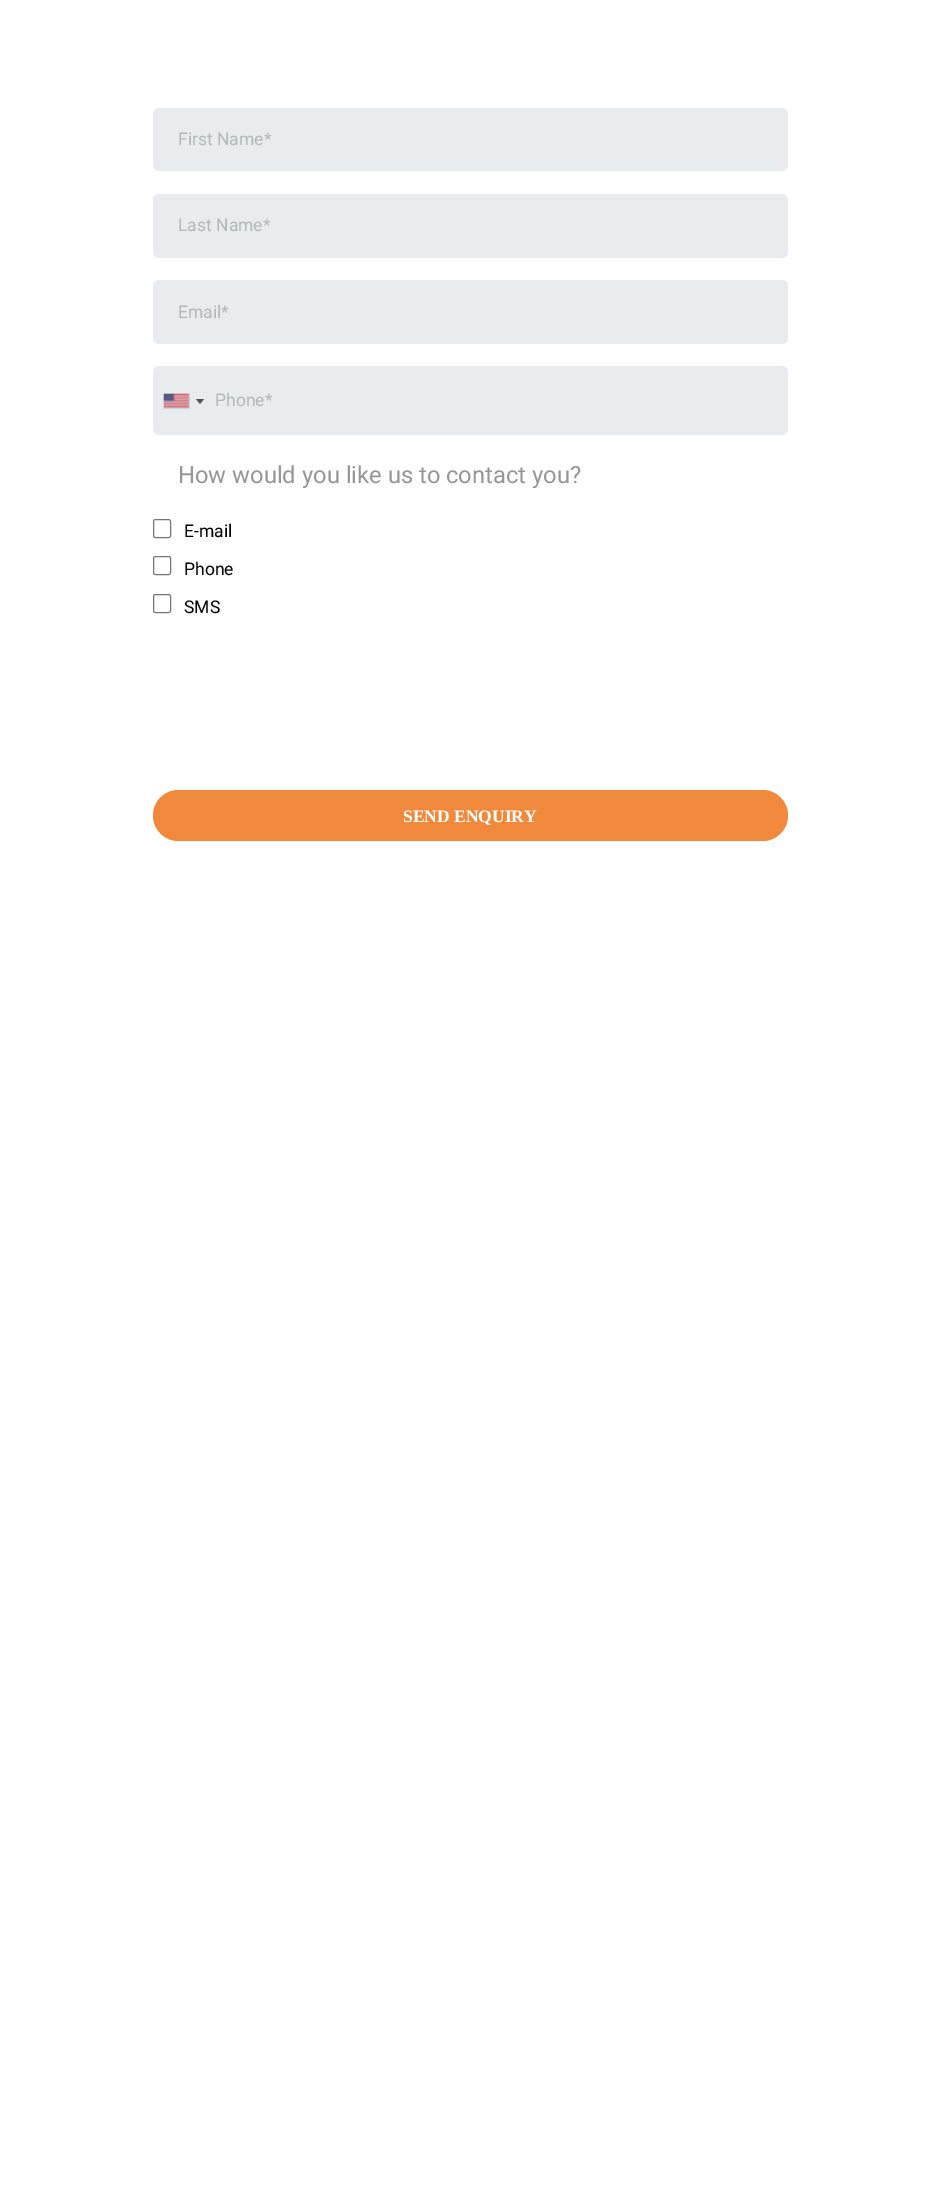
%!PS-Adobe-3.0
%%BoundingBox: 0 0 940 2188
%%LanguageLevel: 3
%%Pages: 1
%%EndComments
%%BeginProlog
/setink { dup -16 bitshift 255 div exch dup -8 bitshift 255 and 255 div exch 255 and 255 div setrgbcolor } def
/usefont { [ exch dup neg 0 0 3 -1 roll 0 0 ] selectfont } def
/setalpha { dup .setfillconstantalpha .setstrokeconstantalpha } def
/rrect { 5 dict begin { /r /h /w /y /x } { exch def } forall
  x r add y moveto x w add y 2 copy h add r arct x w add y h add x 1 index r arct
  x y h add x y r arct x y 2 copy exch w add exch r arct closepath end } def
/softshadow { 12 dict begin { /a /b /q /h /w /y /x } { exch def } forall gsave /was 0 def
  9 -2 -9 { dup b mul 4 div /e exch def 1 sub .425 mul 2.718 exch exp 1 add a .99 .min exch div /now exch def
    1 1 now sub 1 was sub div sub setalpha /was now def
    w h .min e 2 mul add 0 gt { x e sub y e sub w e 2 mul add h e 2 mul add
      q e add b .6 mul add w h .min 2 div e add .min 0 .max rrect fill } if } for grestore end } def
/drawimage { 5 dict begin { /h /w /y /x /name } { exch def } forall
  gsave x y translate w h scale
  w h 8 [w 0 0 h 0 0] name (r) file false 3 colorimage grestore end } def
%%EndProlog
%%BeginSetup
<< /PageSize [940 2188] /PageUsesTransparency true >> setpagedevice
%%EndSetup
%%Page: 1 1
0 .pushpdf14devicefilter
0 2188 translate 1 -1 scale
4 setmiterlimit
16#FFFFFF setink
0 0 940 2188 rectfill
16#E9ECEF setink
153 108 635 63 6 rrect fill
/Roboto-Regular 17.5 usefont
16#AFB8BC setink
178 145 moveto (First Name*) show
16#E9ECEF setink
153 194 635 64 6 rrect fill
16#AFB8BC setink
178 231 moveto (Last Name*) show
16#E9ECEF setink
153 280 635 64 6 rrect fill
16#AFB8BC setink
178 318 moveto (Email*) show
16#E9ECEF setink
153 366 635 69 6 rrect fill
16#888888 setink
164 394 25 14 0 0.5 1 softshadow
16#DBDBDB setink
164 394 25 14 rectfill
(img1.raw) 163 393 26 15 drawimage
16#555555 setink
196 399 moveto 204 399 lineto 200 404 lineto closepath fill
16#AFB8BC setink
215 406 moveto (Phone*) show
/Roboto-Regular 23.75 usefont
16#969696 setink
178 483 moveto (How would you like us to contact you?) show
16#767676 setink
153.5 519.5 17 18 2 rrect stroke
/Roboto-Regular 17.5 usefont
16#000000 setink
184 537 moveto (E-mail) show
16#767676 setink
153.5 556.5 17 18 2 rrect stroke
16#000000 setink
184 575 moveto (Phone) show
16#767676 setink
153.5 594.5 17 18 2 rrect stroke
16#000000 setink
184 613 moveto (SMS) show
16#F1893C setink
153 790 635 51 25.5 rrect fill
/LiberationSerif-Bold 17.5 usefont
16#FFFFFF setink
403 822 moveto (SEND ENQUIRY) show
.poppdf14devicefilter showpage
%%EOF
